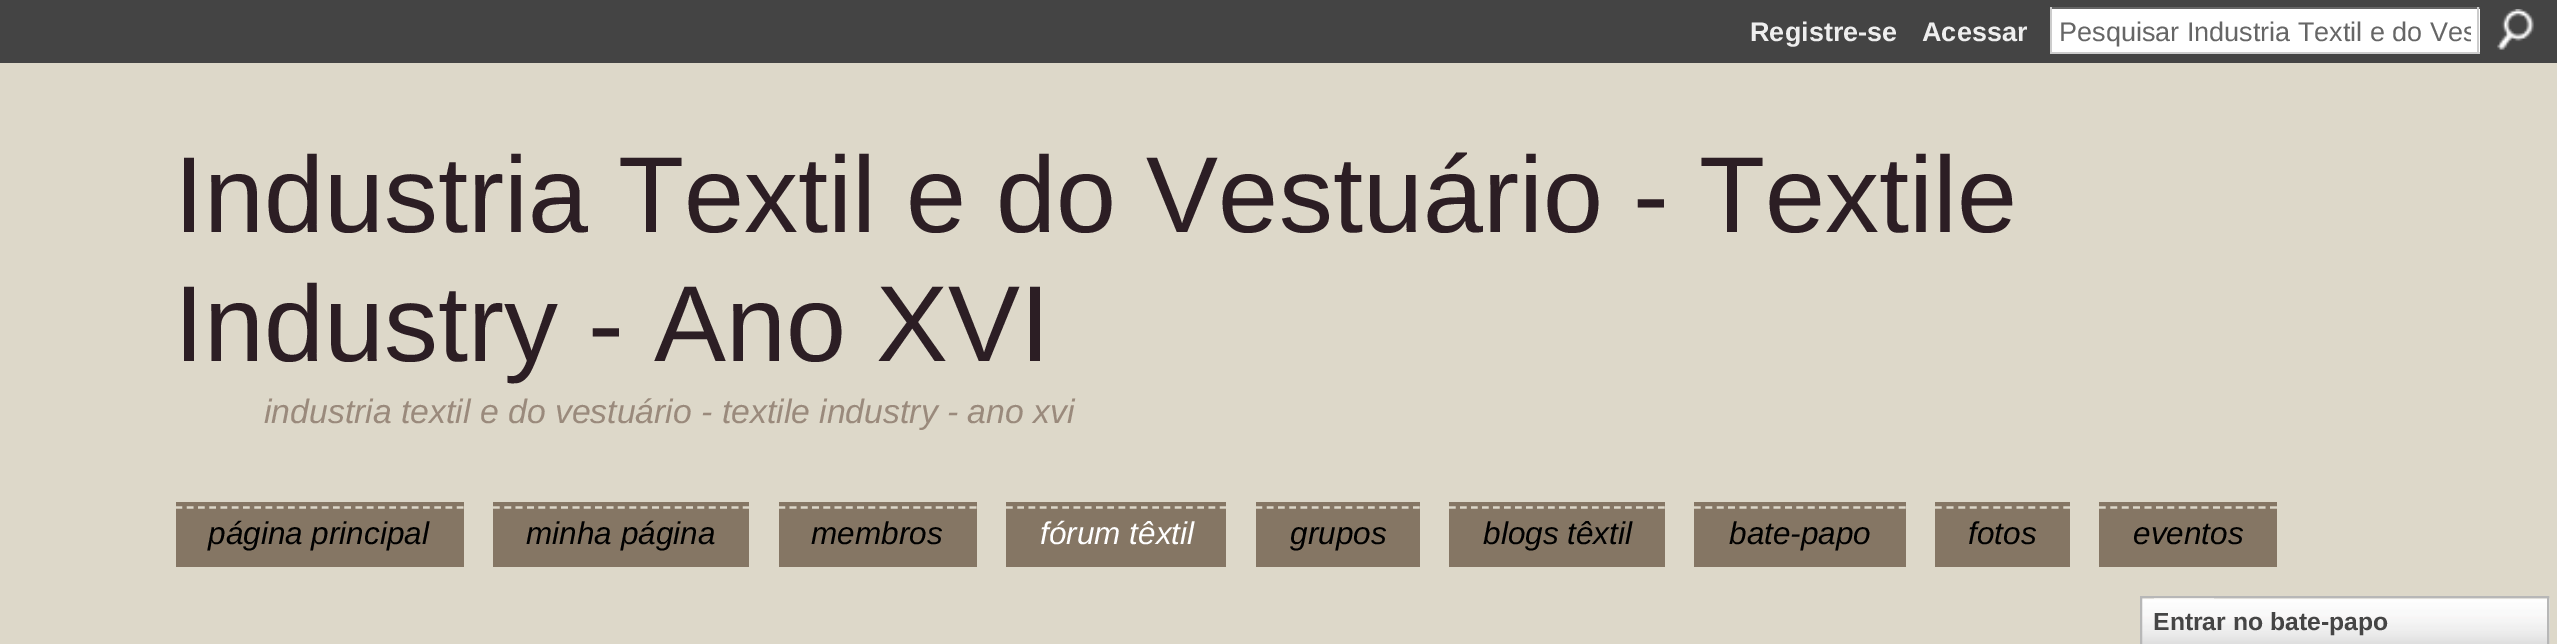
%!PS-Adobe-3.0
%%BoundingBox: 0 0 2557 644
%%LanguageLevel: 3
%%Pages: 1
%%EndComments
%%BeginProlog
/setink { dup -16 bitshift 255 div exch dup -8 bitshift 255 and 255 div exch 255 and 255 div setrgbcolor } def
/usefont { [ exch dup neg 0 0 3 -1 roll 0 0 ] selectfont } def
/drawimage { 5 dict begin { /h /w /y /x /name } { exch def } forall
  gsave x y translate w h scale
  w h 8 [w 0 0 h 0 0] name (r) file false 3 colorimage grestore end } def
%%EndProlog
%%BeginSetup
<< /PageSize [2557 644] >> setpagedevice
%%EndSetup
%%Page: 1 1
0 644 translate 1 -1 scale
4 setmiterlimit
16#DDD8C9 setink
0 0 2557 644 rectfill
16#444444 setink
0 0 2557 63 rectfill
/LiberationSans-Bold 27 usefont
16#EEEEEE setink
1750 41 moveto (Registre-se) show
1922 41 moveto (Acessar) show
[
    [2052 9 428 43 16#FFFFFF]
    [2050 7 430 2 16#666666]
    [2477 7 2 47 16#CCCCCC]
    [2050 52 430 2 16#CCCCCC]
    [2050 7 2 47 16#CCCCCC]
] { aload pop setink rectfill } forall
gsave
2059 16 412 31 rectclip
/LiberationSans-Regular 27 usefont
16#666666 setink
2059 41 moveto (Pesquisar Industria Textil e do Ves) show
grestore
(img1.raw) 2497 9 37 41 drawimage
/LiberationSans-Regular 108 usefont
16#2C1E24 setink
174 232 moveto (Industria Textil e do Vestuário - Textile) show
174 361 moveto (Industry - Ano XVI) show
/LiberationSans-Italic 33.75 usefont
16#9A8A7C setink
264 423 moveto (industria textil e do vestuário - textile industry - ano xvi) show
16#857664 setink
176 502 288 65 rectfill
16#DDD8C9 setink
2.2 setlinewidth
[6.75 4.5] 0 setdash
175.5 507.5 moveto 463.5 507.5 lineto stroke
/LiberationSans-Italic 31.5 usefont
16#000000 setink
208 544 moveto (página principal) show
16#857664 setink
493 502 256 65 rectfill
16#DDD8C9 setink
[6.75 4.61] 0 setdash
493 507.5 moveto 749 507.5 lineto stroke
16#000000 setink
526 544 moveto (minha página) show
16#857664 setink
779 502 198 65 rectfill
16#DDD8C9 setink
[6.75 4.5] 0 setdash
778.5 507.5 moveto 976.5 507.5 lineto stroke
16#000000 setink
811 544 moveto (membros) show
16#857664 setink
1006 502 220 65 rectfill
16#DDD8C9 setink
1006 507.5 moveto 1226 507.5 lineto stroke
16#FFFFFF setink
1040 544 moveto (fórum têxtil) show
16#857664 setink
1256 502 164 65 rectfill
16#DDD8C9 setink
1255.5 507.5 moveto 1420 507.5 lineto stroke
16#000000 setink
1290 544 moveto (grupos) show
16#857664 setink
1449 502 216 65 rectfill
16#DDD8C9 setink
[6.75 4.25] 0 setdash
1449 507.5 moveto 1665 507.5 lineto stroke
16#000000 setink
1483 544 moveto (blogs têxtil) show
16#857664 setink
1694 502 212 65 rectfill
16#DDD8C9 setink
[6.75 4.63] 0 setdash
1694 507.5 moveto 1906 507.5 lineto stroke
16#000000 setink
1729 544 moveto (bate-papo) show
16#857664 setink
1935 502 135 65 rectfill
16#DDD8C9 setink
[6.75 4.91] 0 setdash
1935 507.5 moveto 2070 507.5 lineto stroke
16#000000 setink
1968 544 moveto (fotos) show
16#857664 setink
2099 502 178 65 rectfill
16#DDD8C9 setink
[6.75 4.66] 0 setdash
2099 507.5 moveto 2277 507.5 lineto stroke
16#000000 setink
2133 544 moveto (eventos) show
(img2.raw) 2142 598 408 46 drawimage
16#B7B7B7 setink
2 setlinewidth
[] 0 setdash
2141 597 407 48 rectstroke
16#F2F0EC setink
2154 598 60 1 rectfill
/LiberationSans-Bold 24.75 usefont
16#454545 setink
2153 630 moveto (Entrar no bate-papo) show
showpage
%%EOF
